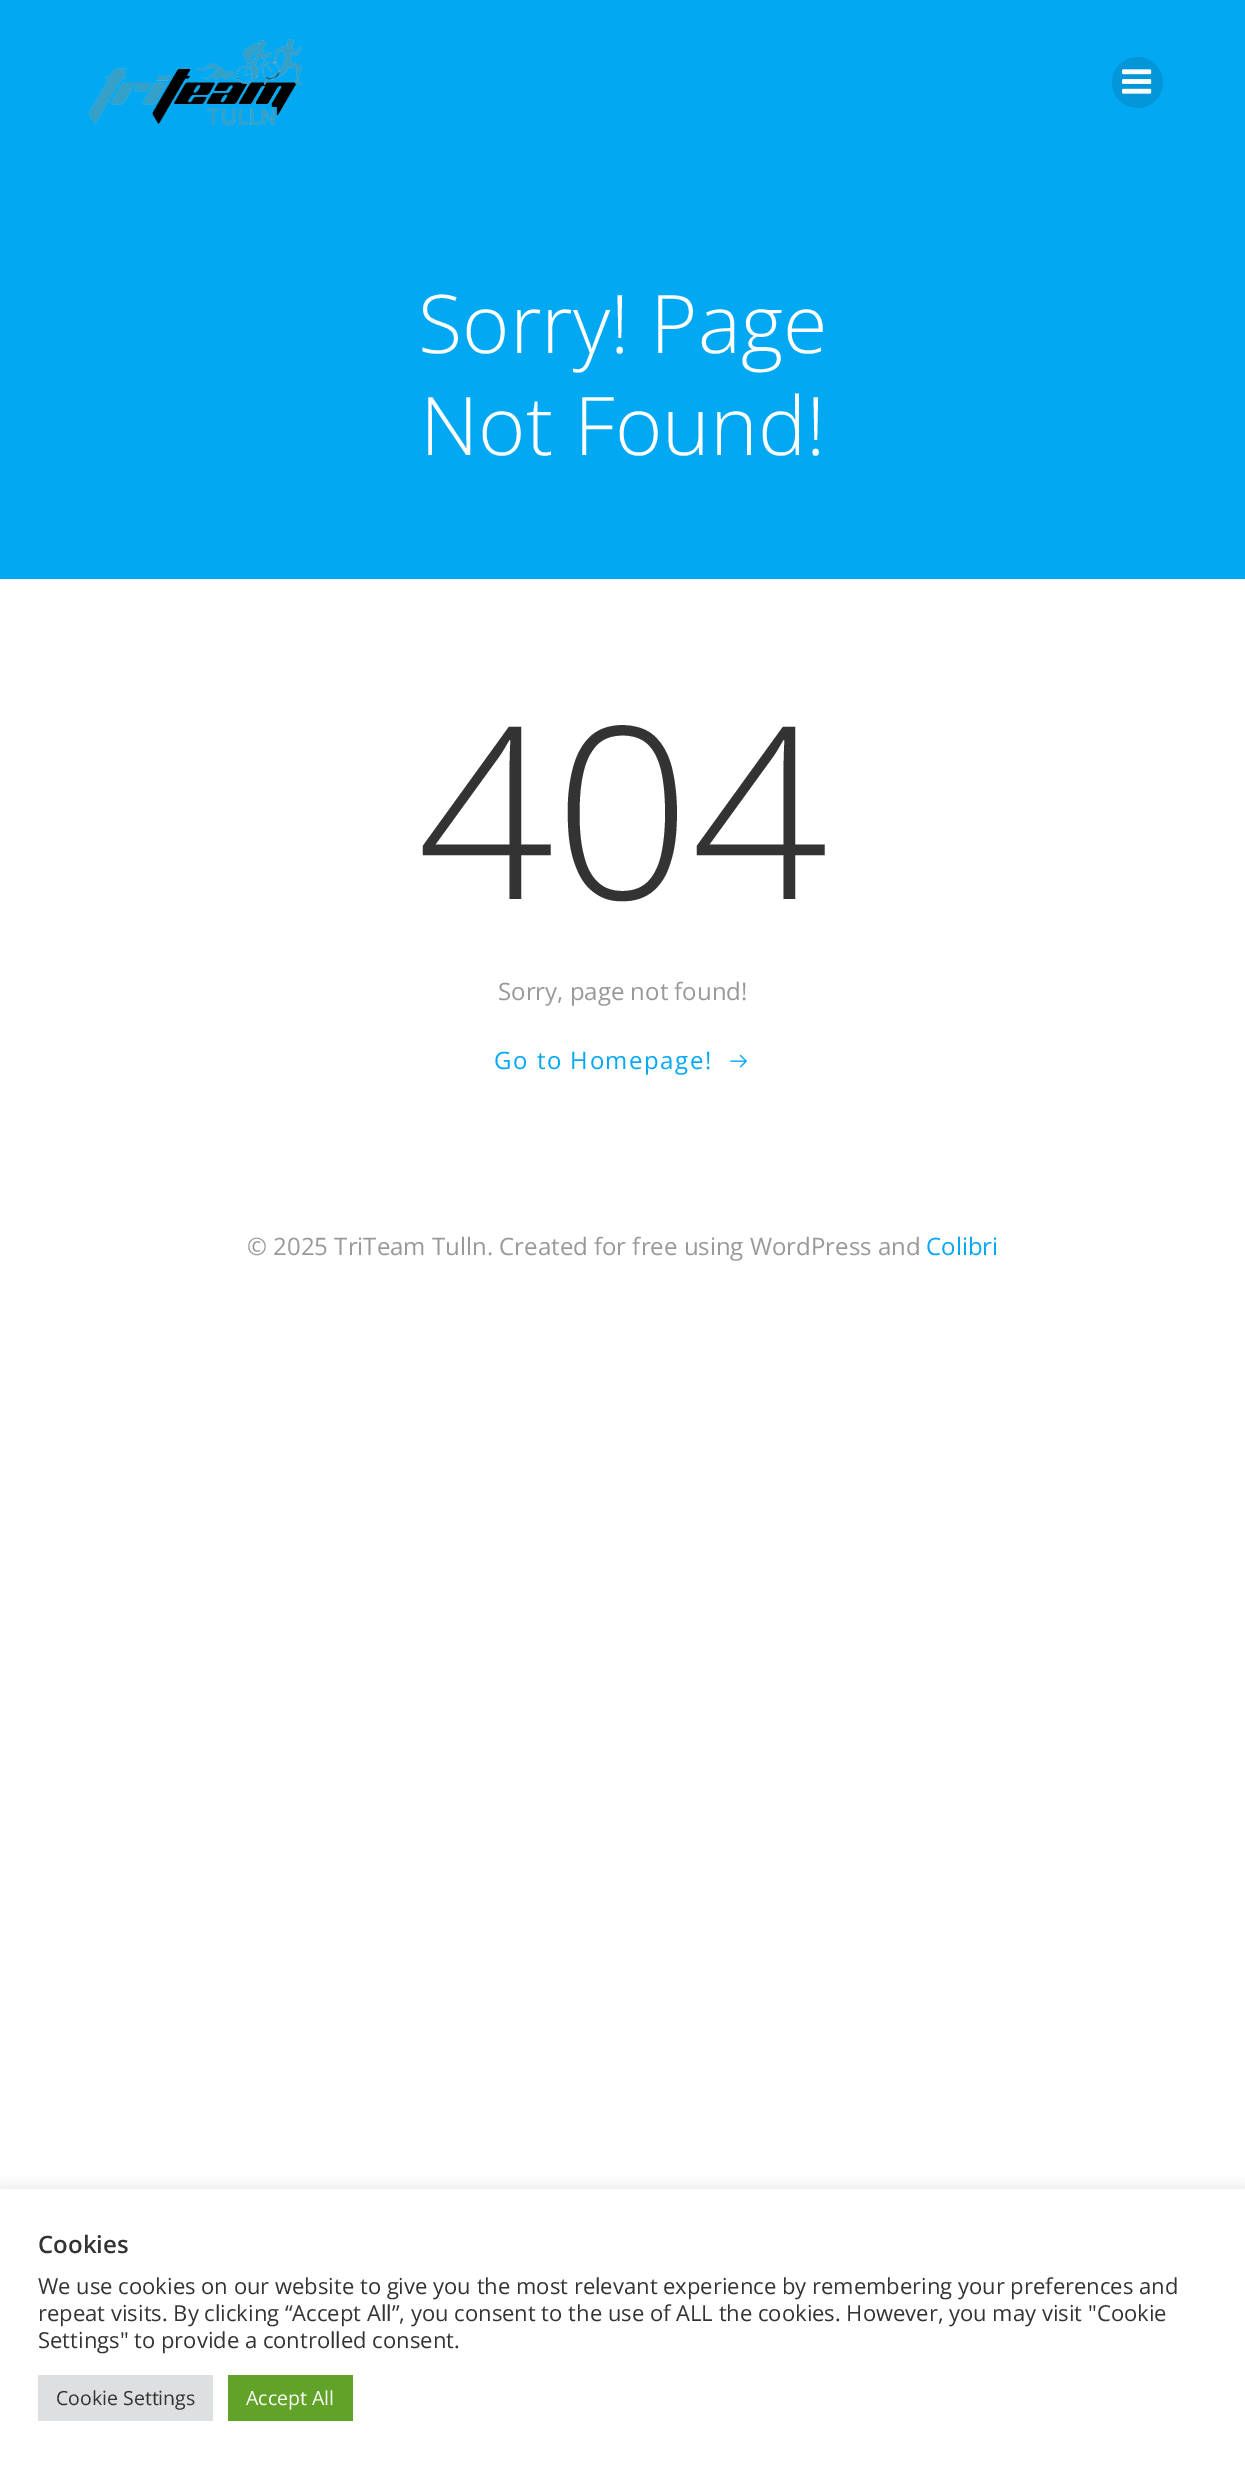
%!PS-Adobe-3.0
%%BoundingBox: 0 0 1245 2466
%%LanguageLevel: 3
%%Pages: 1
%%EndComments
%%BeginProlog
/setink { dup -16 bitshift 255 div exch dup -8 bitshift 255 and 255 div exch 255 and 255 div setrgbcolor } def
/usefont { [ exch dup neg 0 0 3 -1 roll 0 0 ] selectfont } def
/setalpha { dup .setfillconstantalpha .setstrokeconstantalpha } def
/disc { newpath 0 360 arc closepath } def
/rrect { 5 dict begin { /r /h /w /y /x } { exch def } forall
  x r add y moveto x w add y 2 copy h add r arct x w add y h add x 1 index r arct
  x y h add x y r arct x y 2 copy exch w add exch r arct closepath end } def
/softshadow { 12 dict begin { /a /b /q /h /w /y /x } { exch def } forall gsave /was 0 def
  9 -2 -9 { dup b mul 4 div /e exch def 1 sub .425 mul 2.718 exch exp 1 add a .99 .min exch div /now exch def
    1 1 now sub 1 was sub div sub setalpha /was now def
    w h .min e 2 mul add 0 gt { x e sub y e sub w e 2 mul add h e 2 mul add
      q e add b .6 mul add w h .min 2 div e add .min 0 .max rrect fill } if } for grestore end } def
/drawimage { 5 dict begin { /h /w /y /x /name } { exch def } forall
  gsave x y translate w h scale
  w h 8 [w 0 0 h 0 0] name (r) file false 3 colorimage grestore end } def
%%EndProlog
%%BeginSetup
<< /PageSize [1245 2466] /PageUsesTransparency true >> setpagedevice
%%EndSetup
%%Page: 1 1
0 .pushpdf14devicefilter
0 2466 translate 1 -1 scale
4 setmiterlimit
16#FFFFFF setink
0 0 1245 2466 rectfill
16#03A8F2 setink
0 0 1245 579 rectfill
(img1.raw) 88 38 215 88 drawimage
16#0397DA setink
1137.5 82.5 25.5 disc fill
(img2.raw) 1122 69 30 25 drawimage
/OpenSans-Light 81 usefont
16#FFFFFF setink
418 353 moveto (Sorry! Page) show
420 455 moveto (Not Found!) show
/OpenSans-Light 240 usefont
16#333333 setink
417 899 moveto (404) show
/OpenSans-Regular 24 usefont
16#999999 setink
498 1000 moveto (Sorry, page not found!) show
16#03A9F4 setink
494 1069 moveto 1.5 0 (Go to Homepage!) ashow
(img3.raw) 730 1054 17 14 drawimage
16#999999 setink
247 1255 moveto (© 2025 TriTeam Tulln. Created for free using WordPress and) show
16#03A9F4 setink
926 1255 moveto (Colibri) show
gsave
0 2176 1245 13 rectclip
16#ACABAB setink
0 2187 1245 278 0 7.5 0.3 softshadow
grestore
/OpenSans-SemiBold 24 usefont
16#333333 setink
38 2253 moveto (Cookies) show
/OpenSans-Regular 22 usefont
[
    [(We use cookies on our website to give you the most relevant experience by remembering your preferences and) 38 2294]
    [(repeat visits. By clicking “Accept All”, you consent to the use of ALL the cookies. However, you may visit "Cookie) 38 2321]
    [(Settings" to provide a controlled consent.) 38 2348]
] { aload pop moveto show } forall
16#DEDFE0 setink
38 2375 175 46 rectfill
/OpenSans-Regular 19.5 usefont
16#333333 setink
56 2405 moveto (Cookie Settings) show
16#61A229 setink
228 2375 125 46 rectfill
16#FFFFFF setink
246 2405 moveto (Accept All) show
.poppdf14devicefilter showpage
%%EOF
